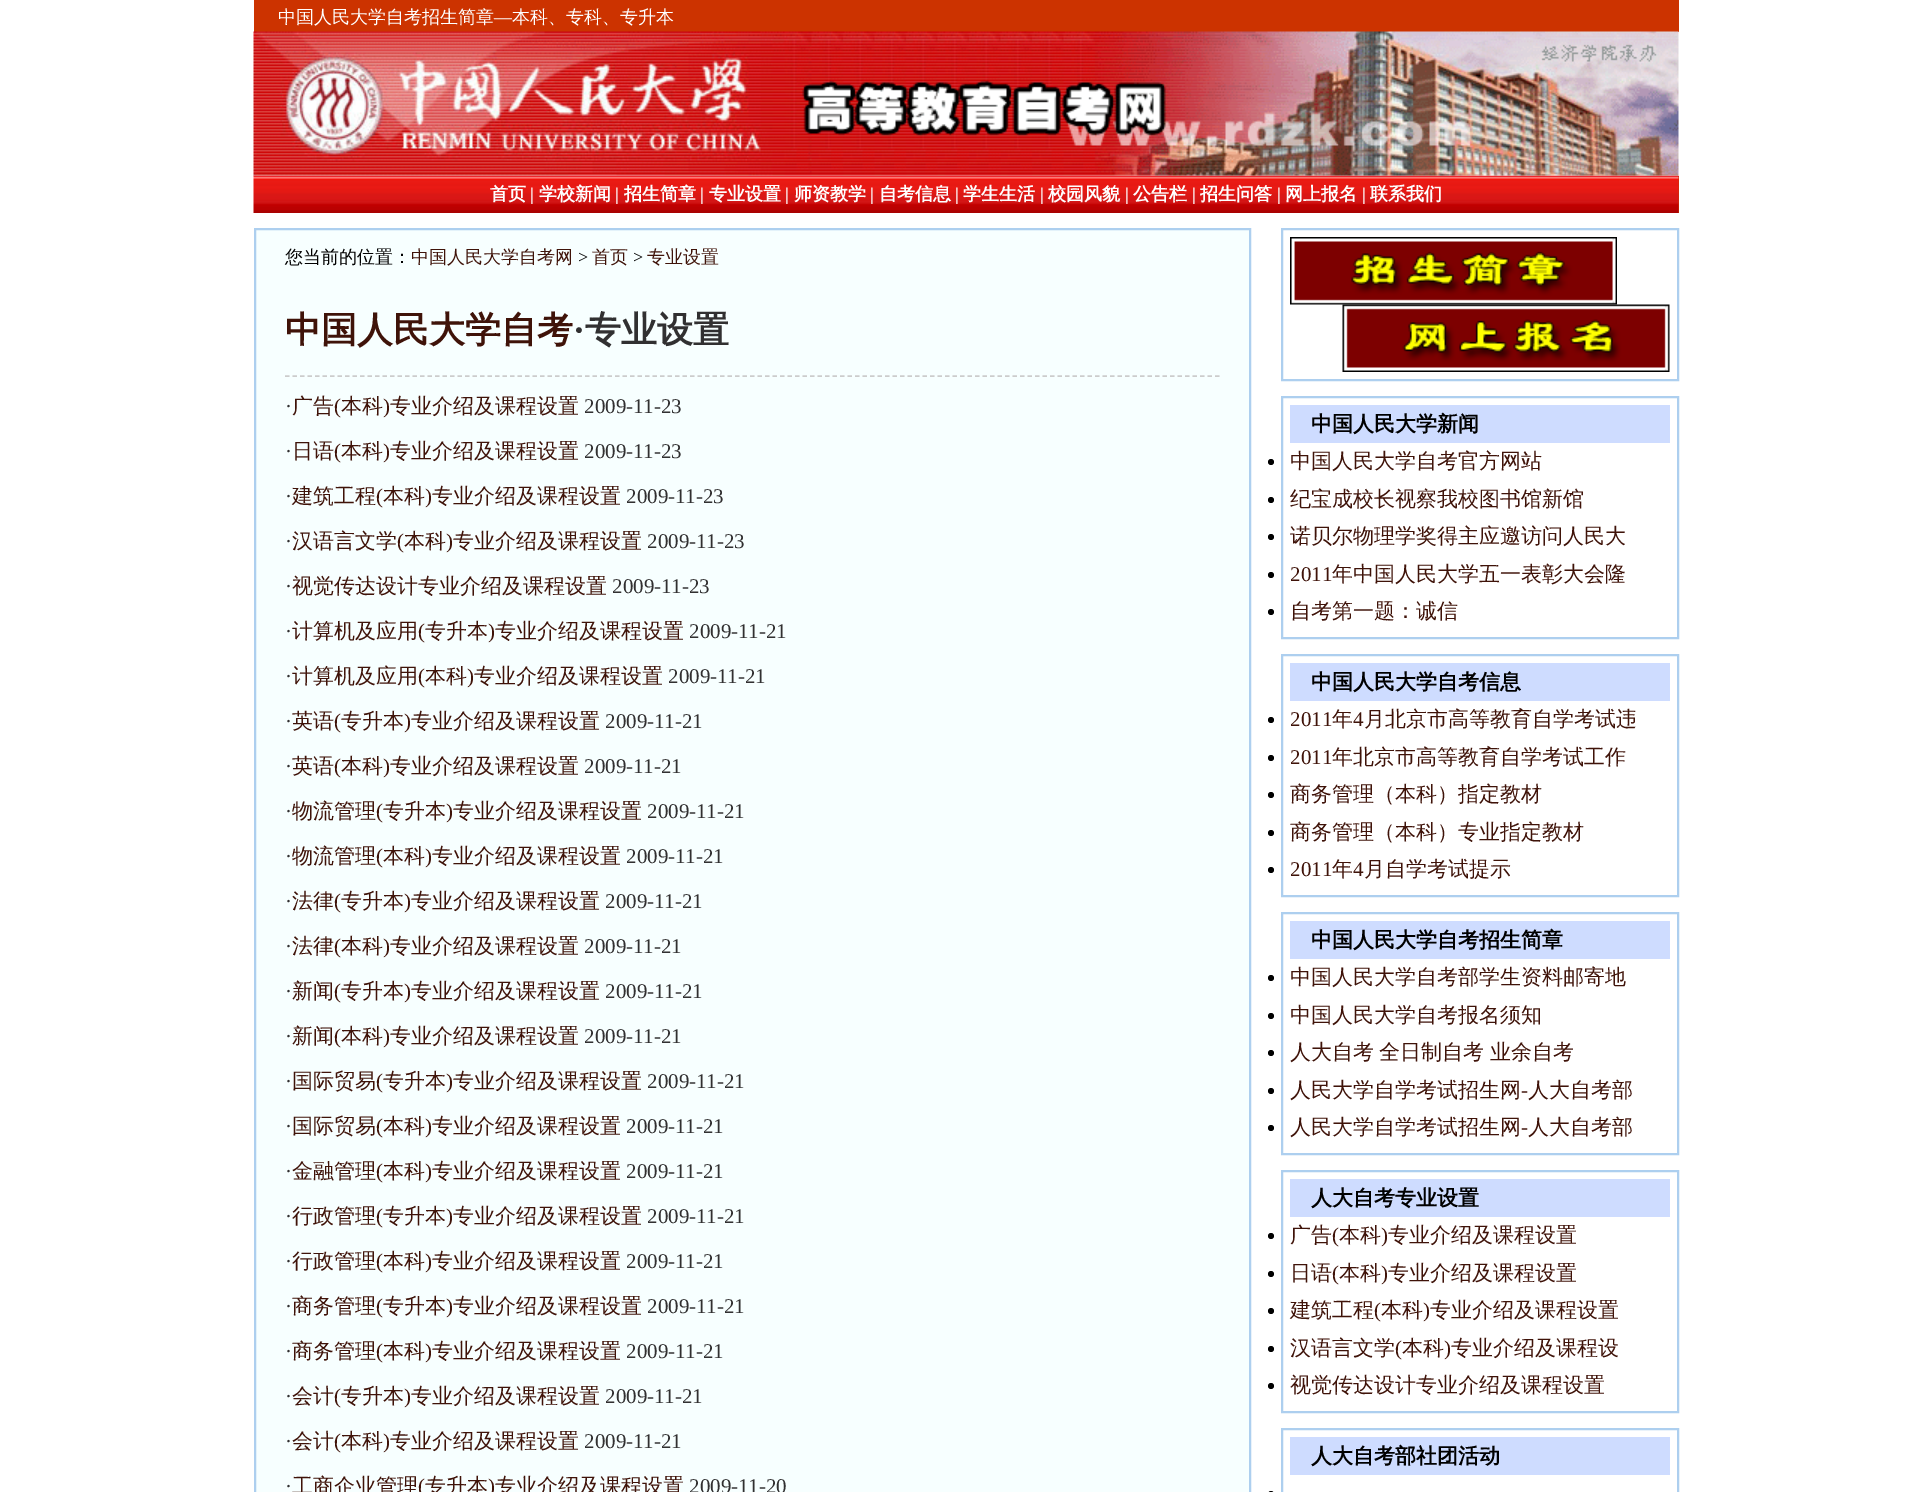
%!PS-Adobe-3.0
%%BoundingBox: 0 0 1931 1492
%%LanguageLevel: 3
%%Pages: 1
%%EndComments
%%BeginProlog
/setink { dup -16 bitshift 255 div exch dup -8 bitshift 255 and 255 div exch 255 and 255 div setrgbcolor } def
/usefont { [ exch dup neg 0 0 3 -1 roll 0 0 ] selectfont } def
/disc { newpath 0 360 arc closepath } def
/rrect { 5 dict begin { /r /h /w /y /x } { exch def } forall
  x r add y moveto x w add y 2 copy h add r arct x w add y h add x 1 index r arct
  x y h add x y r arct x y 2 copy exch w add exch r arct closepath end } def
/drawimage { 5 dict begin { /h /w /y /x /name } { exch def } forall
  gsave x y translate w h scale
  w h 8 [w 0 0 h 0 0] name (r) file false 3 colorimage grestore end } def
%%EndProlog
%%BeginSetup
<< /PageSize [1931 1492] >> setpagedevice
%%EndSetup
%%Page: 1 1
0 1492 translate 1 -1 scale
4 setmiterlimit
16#FFFFFF setink
0 0 1931 1492 rectfill
16#CC3300 setink
254 0 1425 32 rectfill
/WenQuanYiZenHei-Medium 18 usefont
16#FFFFFF setink
278 23 moveto (中国人民大学自考招生简章) show
/LiberationSerif-Regular 18 usefont
494 23 moveto (—) show
/WenQuanYiZenHei-Medium 18 usefont
512 23 moveto (本科、专科、专升本) show
16#CC3300 setink
1678 176 1 37 rectfill
(img2.raw) 253 175 1426 38 drawimage
(img1.raw) 253 31 1426 145 drawimage
/WenQuanYiZenHei-Bold 18 usefont
16#FFFFFF setink
490 200 moveto (首页) show
/LiberationSerif-Bold 18 usefont
530 200 moveto (|) show
/WenQuanYiZenHei-Bold 18 usefont
539 200 moveto (学校新闻) show
/LiberationSerif-Bold 18 usefont
615 200 moveto (|) show
/WenQuanYiZenHei-Bold 18 usefont
624 200 moveto (招生简章) show
/LiberationSerif-Bold 18 usefont
700 200 moveto (|) show
/WenQuanYiZenHei-Bold 18 usefont
709 200 moveto (专业设置) show
/LiberationSerif-Bold 18 usefont
785 200 moveto (|) show
/WenQuanYiZenHei-Bold 18 usefont
794 200 moveto (师资教学) show
/LiberationSerif-Bold 18 usefont
870 200 moveto (|) show
/WenQuanYiZenHei-Bold 18 usefont
879 200 moveto (自考信息) show
/LiberationSerif-Bold 18 usefont
955 200 moveto (|) show
/WenQuanYiZenHei-Bold 18 usefont
963 200 moveto (学生生活) show
/LiberationSerif-Bold 18 usefont
1040 200 moveto (|) show
/WenQuanYiZenHei-Bold 18 usefont
1048 200 moveto (校园风貌) show
/LiberationSerif-Bold 18 usefont
1125 200 moveto (|) show
/WenQuanYiZenHei-Bold 18 usefont
1133 200 moveto (公告栏) show
/LiberationSerif-Bold 18 usefont
1192 200 moveto (|) show
/WenQuanYiZenHei-Bold 18 usefont
1200 200 moveto (招生问答) show
/LiberationSerif-Bold 18 usefont
1277 200 moveto (|) show
/WenQuanYiZenHei-Bold 18 usefont
1285 200 moveto (网上报名) show
/LiberationSerif-Bold 18 usefont
1362 200 moveto (|) show
/WenQuanYiZenHei-Bold 18 usefont
1370 200 moveto (联系我们) show
16#F7FFFF setink
255 229 moveto 1250 229 lineto 1250 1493 lineto 255 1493 lineto closepath gsave fill grestore
16#ADCFEF setink
2 setlinewidth
stroke
/WenQuanYiZenHei-Medium 18 usefont
16#000000 setink
285 263 moveto (您当前的位置：) show
16#3F1309 setink
411 263 moveto (中国人民大学自考网) show
/LiberationSerif-Regular 18 usefont
16#000000 setink
578 263 moveto (>) show
/WenQuanYiZenHei-Medium 18 usefont
16#3F1309 setink
592 263 moveto (首页) show
/LiberationSerif-Regular 18 usefont
16#000000 setink
633 263 moveto (>) show
/WenQuanYiZenHei-Medium 18 usefont
16#3F1309 setink
647 263 moveto (专业设置) show
16#CCCCCC setink
1.5 setlinewidth
[4.5 3] 0 setdash
285 376 moveto 1219.5 376 lineto stroke
/WenQuanYiZenHei-Bold 36 usefont
16#3F1309 setink
285 342 moveto (中国人民大学自考) show
/LiberationSerif-Bold 36 usefont
16#313031 setink
573 342 moveto (·) show
/WenQuanYiZenHei-Bold 36 usefont
585 342 moveto (专业设置) show
/LiberationSerif-Regular 21 usefont
285 413 moveto (·) show
/WenQuanYiZenHei-Medium 21 usefont
16#3F1309 setink
292 413 moveto (广告) show
/LiberationSerif-Regular 21 usefont
334 413 moveto (\() show
/WenQuanYiZenHei-Medium 21 usefont
341 413 moveto (本科) show
/LiberationSerif-Regular 21 usefont
383 413 moveto (\)) show
/WenQuanYiZenHei-Medium 21 usefont
390 413 moveto (专业介绍及课程设置) show
/LiberationSerif-Regular 21 usefont
16#313031 setink
584 413 moveto (2009-11-23) show
285 458 moveto (·) show
/WenQuanYiZenHei-Medium 21 usefont
16#3F1309 setink
292 458 moveto (日语) show
/LiberationSerif-Regular 21 usefont
334 458 moveto (\() show
/WenQuanYiZenHei-Medium 21 usefont
341 458 moveto (本科) show
/LiberationSerif-Regular 21 usefont
383 458 moveto (\)) show
/WenQuanYiZenHei-Medium 21 usefont
390 458 moveto (专业介绍及课程设置) show
/LiberationSerif-Regular 21 usefont
16#313031 setink
584 458 moveto (2009-11-23) show
285 503 moveto (·) show
/WenQuanYiZenHei-Medium 21 usefont
16#3F1309 setink
292 503 moveto (建筑工程) show
/LiberationSerif-Regular 21 usefont
376 503 moveto (\() show
/WenQuanYiZenHei-Medium 21 usefont
383 503 moveto (本科) show
/LiberationSerif-Regular 21 usefont
425 503 moveto (\)) show
/WenQuanYiZenHei-Medium 21 usefont
432 503 moveto (专业介绍及课程设置) show
/LiberationSerif-Regular 21 usefont
16#313031 setink
626 503 moveto (2009-11-23) show
285 548 moveto (·) show
/WenQuanYiZenHei-Medium 21 usefont
16#3F1309 setink
292 548 moveto (汉语言文学) show
/LiberationSerif-Regular 21 usefont
397 548 moveto (\() show
/WenQuanYiZenHei-Medium 21 usefont
404 548 moveto (本科) show
/LiberationSerif-Regular 21 usefont
446 548 moveto (\)) show
/WenQuanYiZenHei-Medium 21 usefont
453 548 moveto (专业介绍及课程设置) show
/LiberationSerif-Regular 21 usefont
16#313031 setink
647 548 moveto (2009-11-23) show
285 593 moveto (·) show
/WenQuanYiZenHei-Medium 21 usefont
16#3F1309 setink
292 593 moveto (视觉传达设计专业介绍及课程设置) show
/LiberationSerif-Regular 21 usefont
16#313031 setink
612 593 moveto (2009-11-23) show
285 638 moveto (·) show
/WenQuanYiZenHei-Medium 21 usefont
16#3F1309 setink
292 638 moveto (计算机及应用) show
/LiberationSerif-Regular 21 usefont
418 638 moveto (\() show
/WenQuanYiZenHei-Medium 21 usefont
425 638 moveto (专升本) show
/LiberationSerif-Regular 21 usefont
488 638 moveto (\)) show
/WenQuanYiZenHei-Medium 21 usefont
495 638 moveto (专业介绍及课程设置) show
/LiberationSerif-Regular 21 usefont
16#313031 setink
689 638 moveto (2009-11-21) show
285 683 moveto (·) show
/WenQuanYiZenHei-Medium 21 usefont
16#3F1309 setink
292 683 moveto (计算机及应用) show
/LiberationSerif-Regular 21 usefont
418 683 moveto (\() show
/WenQuanYiZenHei-Medium 21 usefont
425 683 moveto (本科) show
/LiberationSerif-Regular 21 usefont
467 683 moveto (\)) show
/WenQuanYiZenHei-Medium 21 usefont
474 683 moveto (专业介绍及课程设置) show
/LiberationSerif-Regular 21 usefont
16#313031 setink
668 683 moveto (2009-11-21) show
285 728 moveto (·) show
/WenQuanYiZenHei-Medium 21 usefont
16#3F1309 setink
292 728 moveto (英语) show
/LiberationSerif-Regular 21 usefont
334 728 moveto (\() show
/WenQuanYiZenHei-Medium 21 usefont
341 728 moveto (专升本) show
/LiberationSerif-Regular 21 usefont
404 728 moveto (\)) show
/WenQuanYiZenHei-Medium 21 usefont
411 728 moveto (专业介绍及课程设置) show
/LiberationSerif-Regular 21 usefont
16#313031 setink
605 728 moveto (2009-11-21) show
285 773 moveto (·) show
/WenQuanYiZenHei-Medium 21 usefont
16#3F1309 setink
292 773 moveto (英语) show
/LiberationSerif-Regular 21 usefont
334 773 moveto (\() show
/WenQuanYiZenHei-Medium 21 usefont
341 773 moveto (本科) show
/LiberationSerif-Regular 21 usefont
383 773 moveto (\)) show
/WenQuanYiZenHei-Medium 21 usefont
390 773 moveto (专业介绍及课程设置) show
/LiberationSerif-Regular 21 usefont
16#313031 setink
584 773 moveto (2009-11-21) show
285 818 moveto (·) show
/WenQuanYiZenHei-Medium 21 usefont
16#3F1309 setink
292 818 moveto (物流管理) show
/LiberationSerif-Regular 21 usefont
376 818 moveto (\() show
/WenQuanYiZenHei-Medium 21 usefont
383 818 moveto (专升本) show
/LiberationSerif-Regular 21 usefont
446 818 moveto (\)) show
/WenQuanYiZenHei-Medium 21 usefont
453 818 moveto (专业介绍及课程设置) show
/LiberationSerif-Regular 21 usefont
16#313031 setink
647 818 moveto (2009-11-21) show
285 863 moveto (·) show
/WenQuanYiZenHei-Medium 21 usefont
16#3F1309 setink
292 863 moveto (物流管理) show
/LiberationSerif-Regular 21 usefont
376 863 moveto (\() show
/WenQuanYiZenHei-Medium 21 usefont
383 863 moveto (本科) show
/LiberationSerif-Regular 21 usefont
425 863 moveto (\)) show
/WenQuanYiZenHei-Medium 21 usefont
432 863 moveto (专业介绍及课程设置) show
/LiberationSerif-Regular 21 usefont
16#313031 setink
626 863 moveto (2009-11-21) show
285 908 moveto (·) show
/WenQuanYiZenHei-Medium 21 usefont
16#3F1309 setink
292 908 moveto (法律) show
/LiberationSerif-Regular 21 usefont
334 908 moveto (\() show
/WenQuanYiZenHei-Medium 21 usefont
341 908 moveto (专升本) show
/LiberationSerif-Regular 21 usefont
404 908 moveto (\)) show
/WenQuanYiZenHei-Medium 21 usefont
411 908 moveto (专业介绍及课程设置) show
/LiberationSerif-Regular 21 usefont
16#313031 setink
605 908 moveto (2009-11-21) show
285 953 moveto (·) show
/WenQuanYiZenHei-Medium 21 usefont
16#3F1309 setink
292 953 moveto (法律) show
/LiberationSerif-Regular 21 usefont
334 953 moveto (\() show
/WenQuanYiZenHei-Medium 21 usefont
341 953 moveto (本科) show
/LiberationSerif-Regular 21 usefont
383 953 moveto (\)) show
/WenQuanYiZenHei-Medium 21 usefont
390 953 moveto (专业介绍及课程设置) show
/LiberationSerif-Regular 21 usefont
16#313031 setink
584 953 moveto (2009-11-21) show
285 998 moveto (·) show
/WenQuanYiZenHei-Medium 21 usefont
16#3F1309 setink
292 998 moveto (新闻) show
/LiberationSerif-Regular 21 usefont
334 998 moveto (\() show
/WenQuanYiZenHei-Medium 21 usefont
341 998 moveto (专升本) show
/LiberationSerif-Regular 21 usefont
404 998 moveto (\)) show
/WenQuanYiZenHei-Medium 21 usefont
411 998 moveto (专业介绍及课程设置) show
/LiberationSerif-Regular 21 usefont
16#313031 setink
605 998 moveto (2009-11-21) show
285 1043 moveto (·) show
/WenQuanYiZenHei-Medium 21 usefont
16#3F1309 setink
292 1043 moveto (新闻) show
/LiberationSerif-Regular 21 usefont
334 1043 moveto (\() show
/WenQuanYiZenHei-Medium 21 usefont
341 1043 moveto (本科) show
/LiberationSerif-Regular 21 usefont
383 1043 moveto (\)) show
/WenQuanYiZenHei-Medium 21 usefont
390 1043 moveto (专业介绍及课程设置) show
/LiberationSerif-Regular 21 usefont
16#313031 setink
584 1043 moveto (2009-11-21) show
285 1088 moveto (·) show
/WenQuanYiZenHei-Medium 21 usefont
16#3F1309 setink
292 1088 moveto (国际贸易) show
/LiberationSerif-Regular 21 usefont
376 1088 moveto (\() show
/WenQuanYiZenHei-Medium 21 usefont
383 1088 moveto (专升本) show
/LiberationSerif-Regular 21 usefont
446 1088 moveto (\)) show
/WenQuanYiZenHei-Medium 21 usefont
453 1088 moveto (专业介绍及课程设置) show
/LiberationSerif-Regular 21 usefont
16#313031 setink
647 1088 moveto (2009-11-21) show
285 1133 moveto (·) show
/WenQuanYiZenHei-Medium 21 usefont
16#3F1309 setink
292 1133 moveto (国际贸易) show
/LiberationSerif-Regular 21 usefont
376 1133 moveto (\() show
/WenQuanYiZenHei-Medium 21 usefont
383 1133 moveto (本科) show
/LiberationSerif-Regular 21 usefont
425 1133 moveto (\)) show
/WenQuanYiZenHei-Medium 21 usefont
432 1133 moveto (专业介绍及课程设置) show
/LiberationSerif-Regular 21 usefont
16#313031 setink
626 1133 moveto (2009-11-21) show
285 1178 moveto (·) show
/WenQuanYiZenHei-Medium 21 usefont
16#3F1309 setink
292 1178 moveto (金融管理) show
/LiberationSerif-Regular 21 usefont
376 1178 moveto (\() show
/WenQuanYiZenHei-Medium 21 usefont
383 1178 moveto (本科) show
/LiberationSerif-Regular 21 usefont
425 1178 moveto (\)) show
/WenQuanYiZenHei-Medium 21 usefont
432 1178 moveto (专业介绍及课程设置) show
/LiberationSerif-Regular 21 usefont
16#313031 setink
626 1178 moveto (2009-11-21) show
285 1223 moveto (·) show
/WenQuanYiZenHei-Medium 21 usefont
16#3F1309 setink
292 1223 moveto (行政管理) show
/LiberationSerif-Regular 21 usefont
376 1223 moveto (\() show
/WenQuanYiZenHei-Medium 21 usefont
383 1223 moveto (专升本) show
/LiberationSerif-Regular 21 usefont
446 1223 moveto (\)) show
/WenQuanYiZenHei-Medium 21 usefont
453 1223 moveto (专业介绍及课程设置) show
/LiberationSerif-Regular 21 usefont
16#313031 setink
647 1223 moveto (2009-11-21) show
285 1268 moveto (·) show
/WenQuanYiZenHei-Medium 21 usefont
16#3F1309 setink
292 1268 moveto (行政管理) show
/LiberationSerif-Regular 21 usefont
376 1268 moveto (\() show
/WenQuanYiZenHei-Medium 21 usefont
383 1268 moveto (本科) show
/LiberationSerif-Regular 21 usefont
425 1268 moveto (\)) show
/WenQuanYiZenHei-Medium 21 usefont
432 1268 moveto (专业介绍及课程设置) show
/LiberationSerif-Regular 21 usefont
16#313031 setink
626 1268 moveto (2009-11-21) show
285 1313 moveto (·) show
/WenQuanYiZenHei-Medium 21 usefont
16#3F1309 setink
292 1313 moveto (商务管理) show
/LiberationSerif-Regular 21 usefont
376 1313 moveto (\() show
/WenQuanYiZenHei-Medium 21 usefont
383 1313 moveto (专升本) show
/LiberationSerif-Regular 21 usefont
446 1313 moveto (\)) show
/WenQuanYiZenHei-Medium 21 usefont
453 1313 moveto (专业介绍及课程设置) show
/LiberationSerif-Regular 21 usefont
16#313031 setink
647 1313 moveto (2009-11-21) show
285 1358 moveto (·) show
/WenQuanYiZenHei-Medium 21 usefont
16#3F1309 setink
292 1358 moveto (商务管理) show
/LiberationSerif-Regular 21 usefont
376 1358 moveto (\() show
/WenQuanYiZenHei-Medium 21 usefont
383 1358 moveto (本科) show
/LiberationSerif-Regular 21 usefont
425 1358 moveto (\)) show
/WenQuanYiZenHei-Medium 21 usefont
432 1358 moveto (专业介绍及课程设置) show
/LiberationSerif-Regular 21 usefont
16#313031 setink
626 1358 moveto (2009-11-21) show
285 1403 moveto (·) show
/WenQuanYiZenHei-Medium 21 usefont
16#3F1309 setink
292 1403 moveto (会计) show
/LiberationSerif-Regular 21 usefont
334 1403 moveto (\() show
/WenQuanYiZenHei-Medium 21 usefont
341 1403 moveto (专升本) show
/LiberationSerif-Regular 21 usefont
404 1403 moveto (\)) show
/WenQuanYiZenHei-Medium 21 usefont
411 1403 moveto (专业介绍及课程设置) show
/LiberationSerif-Regular 21 usefont
16#313031 setink
605 1403 moveto (2009-11-21) show
285 1448 moveto (·) show
/WenQuanYiZenHei-Medium 21 usefont
16#3F1309 setink
292 1448 moveto (会计) show
/LiberationSerif-Regular 21 usefont
334 1448 moveto (\() show
/WenQuanYiZenHei-Medium 21 usefont
341 1448 moveto (本科) show
/LiberationSerif-Regular 21 usefont
383 1448 moveto (\)) show
/WenQuanYiZenHei-Medium 21 usefont
390 1448 moveto (专业介绍及课程设置) show
/LiberationSerif-Regular 21 usefont
16#313031 setink
584 1448 moveto (2009-11-21) show
285 1493 moveto (·) show
/WenQuanYiZenHei-Medium 21 usefont
16#3F1309 setink
292 1493 moveto (工商企业管理) show
/LiberationSerif-Regular 21 usefont
418 1493 moveto (\() show
/WenQuanYiZenHei-Medium 21 usefont
425 1493 moveto (专升本) show
/LiberationSerif-Regular 21 usefont
488 1493 moveto (\)) show
/WenQuanYiZenHei-Medium 21 usefont
495 1493 moveto (专业介绍及课程设置) show
/LiberationSerif-Regular 21 usefont
16#313031 setink
689 1493 moveto (2009-11-20) show
16#ADCFEF setink
2 setlinewidth
[] 0 setdash
1282 229 396 151 rectstroke
(img3.raw) 1290 237 327 68 drawimage
(img4.raw) 1342 304 328 68 drawimage
1282 397 396 241 rectstroke
16#CEDCFF setink
1290 405 380 38 rectfill
/WenQuanYiZenHei-Bold 21 usefont
16#000000 setink
1311 431 moveto (中国人民大学新闻) show
1271 462 3 disc fill
/WenQuanYiZenHei-Medium 21 usefont
16#3F1309 setink
1290 468 moveto (中国人民大学自考官方网站) show
16#000000 setink
1271 500 3 disc fill
16#3F1309 setink
1290 506 moveto (纪宝成校长视察我校图书馆新馆) show
16#000000 setink
1271 537 3 disc fill
16#3F1309 setink
1290 543 moveto (诺贝尔物理学奖得主应邀访问人民大) show
16#000000 setink
1271 575 3 disc fill
/LiberationSerif-Regular 21 usefont
16#3F1309 setink
1290 581 moveto (2011) show
/WenQuanYiZenHei-Medium 21 usefont
1332 581 moveto (年中国人民大学五一表彰大会隆) show
16#000000 setink
1271 612 3 disc fill
16#3F1309 setink
1290 618 moveto (自考第一题：诚信) show
16#ADCFEF setink
1282 655 396 241 rectstroke
16#CEDCFF setink
1290 663 380 38 rectfill
/WenQuanYiZenHei-Bold 21 usefont
16#000000 setink
1311 689 moveto (中国人民大学自考信息) show
1271 720 3 disc fill
/LiberationSerif-Regular 21 usefont
16#3F1309 setink
1290 726 moveto (2011) show
/WenQuanYiZenHei-Medium 21 usefont
1332 726 moveto (年) show
/LiberationSerif-Regular 21 usefont
1353 726 moveto (4) show
/WenQuanYiZenHei-Medium 21 usefont
1364 726 moveto (月北京市高等教育自学考试违) show
16#000000 setink
1271 758 3 disc fill
/LiberationSerif-Regular 21 usefont
16#3F1309 setink
1290 764 moveto (2011) show
/WenQuanYiZenHei-Medium 21 usefont
1332 764 moveto (年北京市高等教育自学考试工作) show
16#000000 setink
1271 795 3 disc fill
16#3F1309 setink
1290 801 moveto (商务管理（本科）指定教材) show
16#000000 setink
1271 833 3 disc fill
16#3F1309 setink
1290 839 moveto (商务管理（本科）专业指定教材) show
16#000000 setink
1271 870 3 disc fill
/LiberationSerif-Regular 21 usefont
16#3F1309 setink
1290 876 moveto (2011) show
/WenQuanYiZenHei-Medium 21 usefont
1332 876 moveto (年) show
/LiberationSerif-Regular 21 usefont
1353 876 moveto (4) show
/WenQuanYiZenHei-Medium 21 usefont
1364 876 moveto (月自学考试提示) show
16#ADCFEF setink
1282 913 396 241 rectstroke
16#CEDCFF setink
1290 921 380 38 rectfill
/WenQuanYiZenHei-Bold 21 usefont
16#000000 setink
1311 947 moveto (中国人民大学自考招生简章) show
1271 978 3 disc fill
/WenQuanYiZenHei-Medium 21 usefont
16#3F1309 setink
1290 984 moveto (中国人民大学自考部学生资料邮寄地) show
16#000000 setink
1271 1016 3 disc fill
16#3F1309 setink
1290 1022 moveto (中国人民大学自考报名须知) show
16#000000 setink
1271 1053 3 disc fill
16#3F1309 setink
1290 1059 moveto -1 0 32 (人大自考 全日制自考 业余自考) widthshow
16#000000 setink
1271 1091 3 disc fill
16#3F1309 setink
1290 1097 moveto (人民大学自学考试招生网) show
/LiberationSerif-Regular 21 usefont
1521 1097 moveto (-) show
/WenQuanYiZenHei-Medium 21 usefont
1528 1097 moveto (人大自考部) show
16#000000 setink
1271 1128 3 disc fill
16#3F1309 setink
1290 1134 moveto (人民大学自学考试招生网) show
/LiberationSerif-Regular 21 usefont
1521 1134 moveto (-) show
/WenQuanYiZenHei-Medium 21 usefont
1528 1134 moveto (人大自考部) show
16#ADCFEF setink
1282 1171 396 241 rectstroke
16#CEDCFF setink
1290 1179 380 38 rectfill
/WenQuanYiZenHei-Bold 21 usefont
16#000000 setink
1311 1205 moveto (人大自考专业设置) show
1271 1236 3 disc fill
/WenQuanYiZenHei-Medium 21 usefont
16#3F1309 setink
1290 1242 moveto (广告) show
/LiberationSerif-Regular 21 usefont
1332 1242 moveto (\() show
/WenQuanYiZenHei-Medium 21 usefont
1339 1242 moveto (本科) show
/LiberationSerif-Regular 21 usefont
1381 1242 moveto (\)) show
/WenQuanYiZenHei-Medium 21 usefont
1388 1242 moveto (专业介绍及课程设置) show
16#000000 setink
1271 1274 3 disc fill
16#3F1309 setink
1290 1280 moveto (日语) show
/LiberationSerif-Regular 21 usefont
1332 1280 moveto (\() show
/WenQuanYiZenHei-Medium 21 usefont
1339 1280 moveto (本科) show
/LiberationSerif-Regular 21 usefont
1381 1280 moveto (\)) show
/WenQuanYiZenHei-Medium 21 usefont
1388 1280 moveto (专业介绍及课程设置) show
16#000000 setink
1271 1311 3 disc fill
16#3F1309 setink
1290 1317 moveto (建筑工程) show
/LiberationSerif-Regular 21 usefont
1374 1317 moveto (\() show
/WenQuanYiZenHei-Medium 21 usefont
1381 1317 moveto (本科) show
/LiberationSerif-Regular 21 usefont
1423 1317 moveto (\)) show
/WenQuanYiZenHei-Medium 21 usefont
1430 1317 moveto (专业介绍及课程设置) show
16#000000 setink
1271 1349 3 disc fill
16#3F1309 setink
1290 1355 moveto (汉语言文学) show
/LiberationSerif-Regular 21 usefont
1395 1355 moveto (\() show
/WenQuanYiZenHei-Medium 21 usefont
1402 1355 moveto (本科) show
/LiberationSerif-Regular 21 usefont
1444 1355 moveto (\)) show
/WenQuanYiZenHei-Medium 21 usefont
1451 1355 moveto (专业介绍及课程设) show
16#000000 setink
1271 1386 3 disc fill
16#3F1309 setink
1290 1392 moveto (视觉传达设计专业介绍及课程设置) show
16#ADCFEF setink
1282 1429 396 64 rectstroke
16#CEDCFF setink
1290 1437 380 38 rectfill
/WenQuanYiZenHei-Bold 21 usefont
16#000000 setink
1311 1463 moveto (人大自考部社团活动) show
1268 1491 6 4 3 rrect fill
showpage
%%EOF
